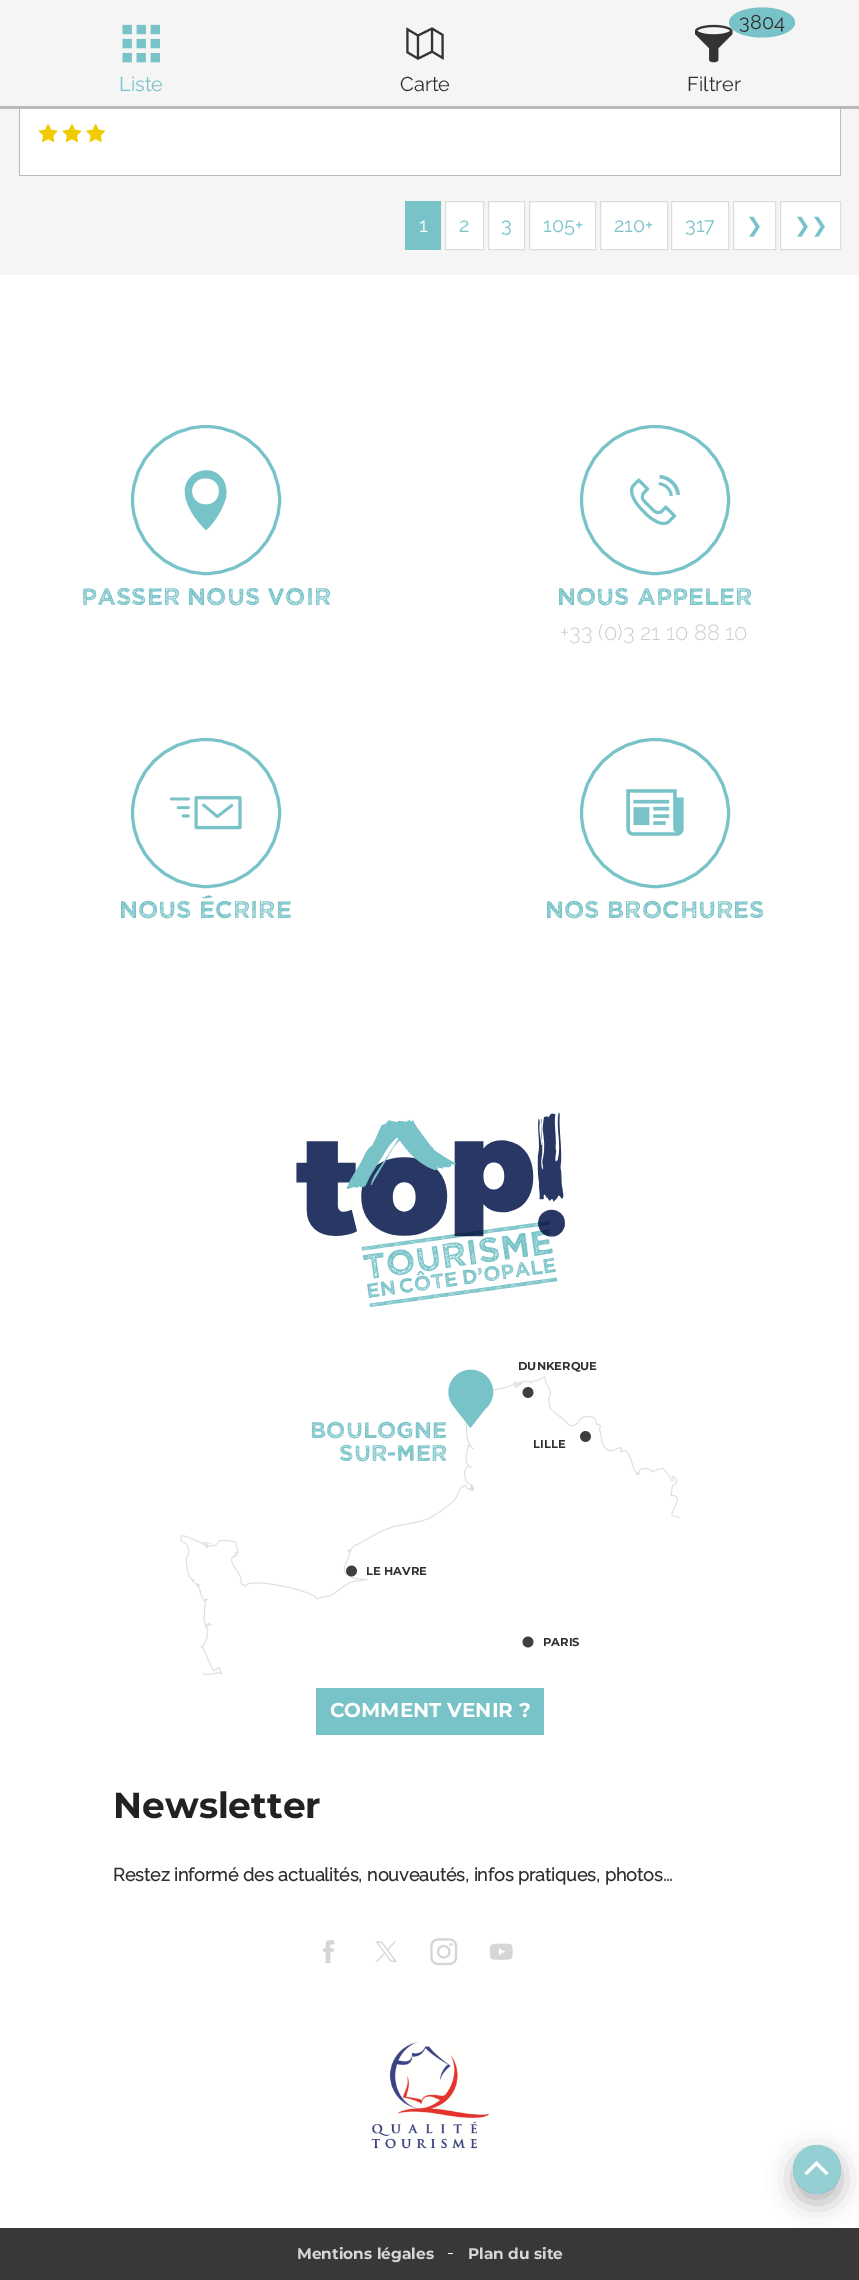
%!PS-Adobe-3.0
%%BoundingBox: 0 0 859 2280
%%LanguageLevel: 3
%%Pages: 1
%%EndComments
%%BeginProlog
/setink { dup -16 bitshift 255 div exch dup -8 bitshift 255 and 255 div exch 255 and 255 div setrgbcolor } def
/usefont { [ exch dup neg 0 0 3 -1 roll 0 0 ] selectfont } def
/setalpha { dup .setfillconstantalpha .setstrokeconstantalpha } def
/disc { newpath 0 360 arc closepath } def
/rrect { 5 dict begin { /r /h /w /y /x } { exch def } forall
  x r add y moveto x w add y 2 copy h add r arct x w add y h add x 1 index r arct
  x y h add x y r arct x y 2 copy exch w add exch r arct closepath end } def
/softshadow { 12 dict begin { /a /b /q /h /w /y /x } { exch def } forall gsave /was 0 def
  9 -2 -9 { dup b mul 4 div /e exch def 1 sub .425 mul 2.718 exch exp 1 add a .99 .min exch div /now exch def
    1 1 now sub 1 was sub div sub setalpha /was now def
    w h .min e 2 mul add 0 gt { x e sub y e sub w e 2 mul add h e 2 mul add
      q e add b .6 mul add w h .min 2 div e add .min 0 .max rrect fill } if } for grestore end } def
/drawimage { 5 dict begin { /h /w /y /x /name } { exch def } forall
  gsave x y translate w h scale
  w h 8 [w 0 0 h 0 0] name (r) file false 3 colorimage grestore end } def
%%EndProlog
%%BeginSetup
<< /PageSize [859 2280] /PageUsesTransparency true >> setpagedevice
%%EndSetup
%%Page: 1 1
0 .pushpdf14devicefilter
0 2280 translate 1 -1 scale
4 setmiterlimit
16#FFFFFF setink
0 0 859 2280 rectfill
16#F5F5F5 setink
0 0 859 106 rectfill
16#BABABA setink
0 106 859 3 rectfill
(img1.raw) 122 24 38 39 drawimage
/Raleway-Thin 20 usefont
16#78C3C8 setink
119 91 moveto (Liste) show
(img2.raw) 406 27 38 33 drawimage
16#303030 setink
400 91 moveto (Carte) show
(img3.raw) 695 24 38 39 drawimage
16#78C3C8 setink
762 7.5 moveto 780 7.5 795 14 795 22.5 curveto 795 31 780 37.5 762 37.5 curveto 744 37.5 729 31 729 22.5 curveto 729 14 744 7.5 762 7.5 curveto closepath fill
16#303030 setink
739 29 moveto (3804) show
687 91 moveto (Filtrer) show
[
    [0 109 859 166 16#F5F5F5]
    [20 109 820 66 16#FFFFFF]
    [840 109 1 67 16#BABABA]
    [19 175 822 1 16#BABABA]
    [19 109 1 67 16#BABABA]
] { aload pop setink rectfill } forall
(img4.raw) 38 124 20 18 drawimage
(img5.raw) 62 124 20 18 drawimage
(img6.raw) 86 124 19 18 drawimage
16#78C3C8 setink
405 201 36 49 rectfill
16#FFFFFF setink
419 232 moveto (1) show
445.5 201.5 moveto 483.5 201.5 lineto 483.5 249.5 lineto 445.5 249.5 lineto closepath gsave fill grestore
16#DDDDDD setink
stroke
16#78C3C8 setink
459 232 moveto (2) show
16#FFFFFF setink
488.5 201.5 moveto 524.5 201.5 lineto 524.5 249.5 lineto 488.5 249.5 lineto closepath gsave fill grestore
16#DDDDDD setink
stroke
16#78C3C8 setink
501 232 moveto (3) show
16#FFFFFF setink
529.5 201.5 moveto 595.5 201.5 lineto 595.5 249.5 lineto 529.5 249.5 lineto closepath gsave fill grestore
16#DDDDDD setink
stroke
16#78C3C8 setink
543 232 moveto (105+) show
16#FFFFFF setink
600.5 201.5 moveto 667.5 201.5 lineto 667.5 249.5 lineto 600.5 249.5 lineto closepath gsave fill grestore
16#DDDDDD setink
stroke
16#78C3C8 setink
614 232 moveto (210+) show
16#FFFFFF setink
671.5 201.5 moveto 728.5 201.5 lineto 728.5 249.5 lineto 671.5 249.5 lineto closepath gsave fill grestore
16#DDDDDD setink
stroke
16#78C3C8 setink
685 232 moveto (317) show
16#FFFFFF setink
733.5 201.5 moveto 775.5 201.5 lineto 775.5 249.5 lineto 733.5 249.5 lineto closepath gsave fill grestore
16#DDDDDD setink
stroke
/DejaVuSans-Regular 20 usefont
16#78C3C8 setink
746 232 moveto (❯) show
16#FFFFFF setink
780.5 201.5 moveto 840.5 201.5 lineto 840.5 249.5 lineto 780.5 249.5 lineto closepath gsave fill grestore
16#DDDDDD setink
stroke
16#78C3C8 setink
794 232 moveto (❯❯) show
3 setlinewidth
206 500 73.5 disc stroke
206 530 moveto 195 520 183 502 185 488 curveto 188 471 210 464 221 477 curveto 226 482 227 490 226 497 curveto 224 507 214 524 206 530 curveto closepath 192 490 moveto 191 508 218 510 219 492 curveto 220 475 194 473 192 490 curveto closepath fill
/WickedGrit-Bold 24 usefont
81 605 moveto (Passer nous voir) show
655 500 73.5 disc stroke
(img7.raw) 629 475 51 51 drawimage
557 605 moveto (Nous appeler) show
/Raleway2-Thin 22 usefont
16#CCCCCC setink
560 640 moveto (+33 \(0\)3 21 10 88 10) show
16#78C3C8 setink
206 813 73.5 disc stroke
(img8.raw) 169 796 73 34 drawimage
/WickedGrit-Bold 24 usefont
119 918 moveto (Nous écrire) show
655 813 73.5 disc stroke
(img9.raw) 626 789 58 47 drawimage
545 918 moveto (Nos brochures) show
(img10.raw) 296 1112 269 195 drawimage
(img11.raw) 180 1369 500 306 drawimage
/Montserrat-Thin 11.5 usefont
16#303030 setink
518 1370 moveto (DUNKERQUE) show
/WickedGrit-Bold 22.75 usefont
16#78C3C8 setink
310 1438 moveto (Boulogne) show
339 1461 moveto (sur-mer) show
/Montserrat-Thin 11.5 usefont
16#303030 setink
[
    [(LILLE) 533 1448]
    [(LE HAVRE) 366 1575]
    [(PARIS) 543 1646]
] { aload pop moveto show } forall
16#78C3C8 setink
316 1688 228 47 rectfill
/Montserrat-Thin 20 usefont
16#FFFFFF setink
330 1717 moveto (COMMENT VENIR ?) show
/Montserrat-Thin 36 usefont
16#222222 setink
113 1818 moveto (Newsletter) show
/Raleway-Bold 18 usefont
16#303030 setink
113 1881 moveto (Restez informé des actualités, nouveautés, infos pratiques, photos...) show
(img12.raw) 322 1940 13 24 drawimage
(img13.raw) 375 1941 22 21 drawimage
(img14.raw) 430 1938 28 28 drawimage
(img15.raw) 489 1943 24 17 drawimage
(img16.raw) 371 2042 119 107 drawimage
16#383838 setink
0 2228 859 52 rectfill
/Montserrat-Thin 15.4 usefont
16#D7D7D7 setink
297 2259 moveto (Mentions légales) show
16#FFFFFF setink
448 2253 moveto 453 2253 lineto 453 2254 lineto 448 2254 lineto closepath fill
16#D7D7D7 setink
468 2259 moveto (Plan du site) show
gsave
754 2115 moveto 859 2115 lineto 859 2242 lineto 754 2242 lineto closepath 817 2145 moveto 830.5 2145 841 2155.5 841 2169 curveto 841 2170 lineto 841 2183.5 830.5 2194 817 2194 curveto 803.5 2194 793 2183.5 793 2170 curveto 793 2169 lineto 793 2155.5 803.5 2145 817 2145 curveto closepath eoclip newpath
16#000000 setink
793 2154 48 49 24 12.5 0.3 softshadow
grestore
0.8 setalpha
16#78C3C8 setink
793 2145 48 49 24 rrect fill
1 setalpha
16#FFFFFF setink
826 2175 moveto 828.5 2173 lineto 816.5 2161 lineto 804.5 2173 lineto 807 2175 lineto 816.5 2165.5 lineto closepath fill
.poppdf14devicefilter showpage
%%EOF
